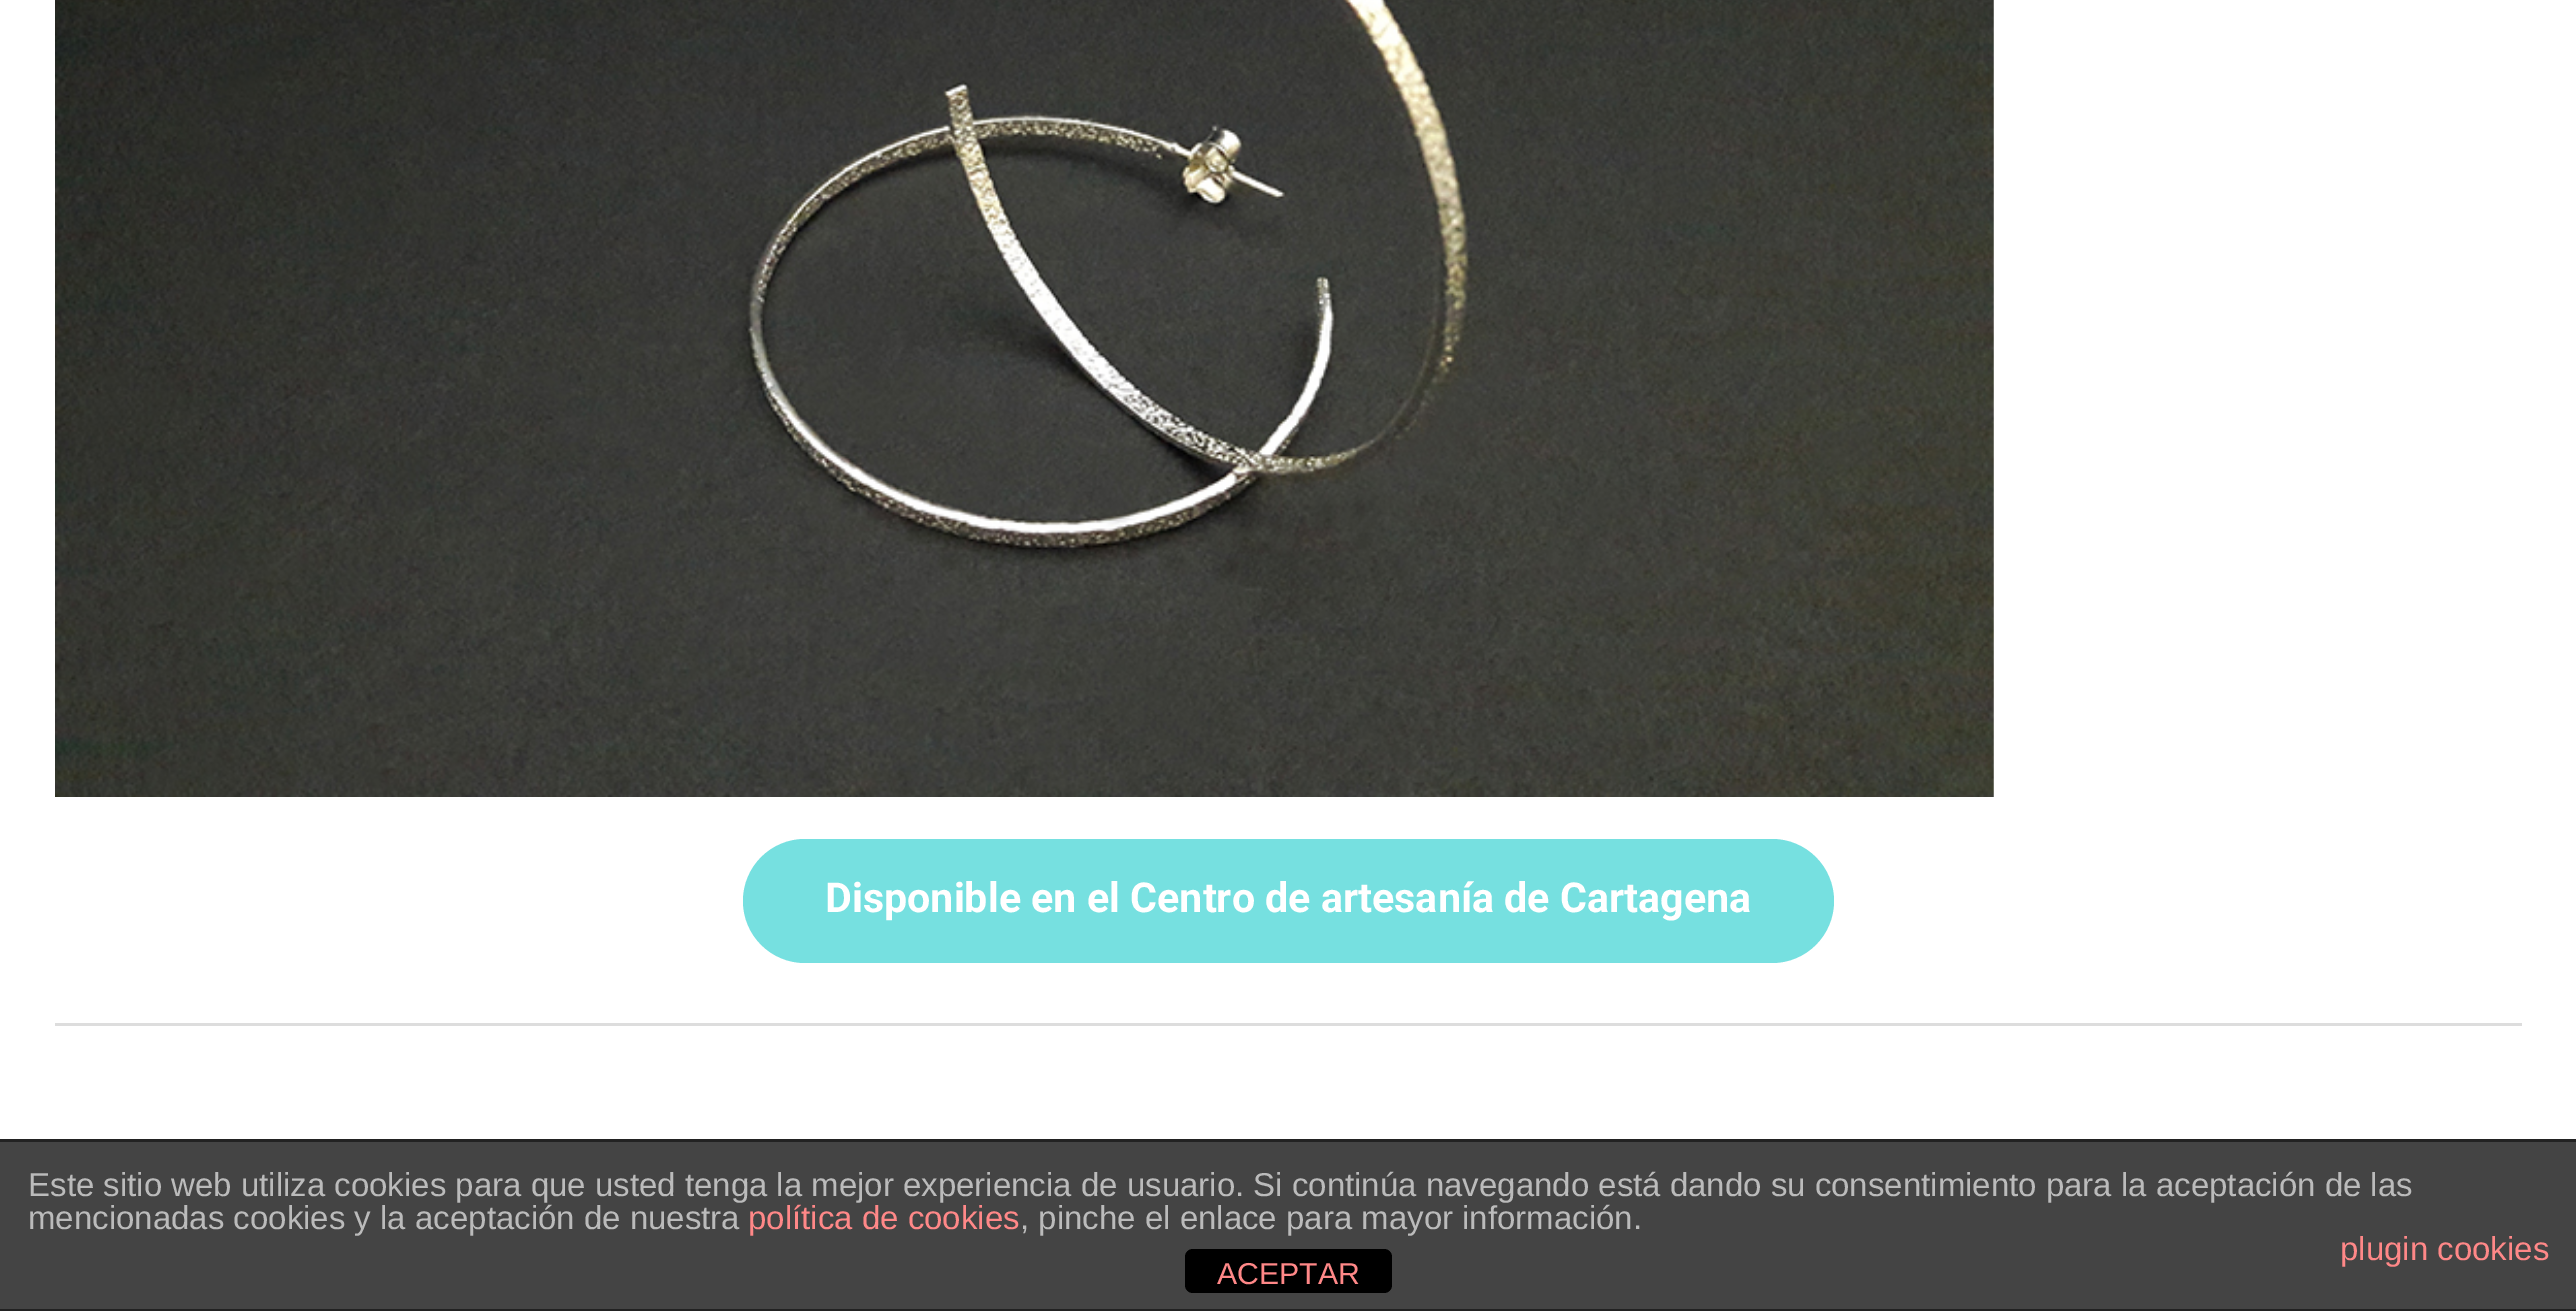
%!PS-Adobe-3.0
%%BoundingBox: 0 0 2576 1311
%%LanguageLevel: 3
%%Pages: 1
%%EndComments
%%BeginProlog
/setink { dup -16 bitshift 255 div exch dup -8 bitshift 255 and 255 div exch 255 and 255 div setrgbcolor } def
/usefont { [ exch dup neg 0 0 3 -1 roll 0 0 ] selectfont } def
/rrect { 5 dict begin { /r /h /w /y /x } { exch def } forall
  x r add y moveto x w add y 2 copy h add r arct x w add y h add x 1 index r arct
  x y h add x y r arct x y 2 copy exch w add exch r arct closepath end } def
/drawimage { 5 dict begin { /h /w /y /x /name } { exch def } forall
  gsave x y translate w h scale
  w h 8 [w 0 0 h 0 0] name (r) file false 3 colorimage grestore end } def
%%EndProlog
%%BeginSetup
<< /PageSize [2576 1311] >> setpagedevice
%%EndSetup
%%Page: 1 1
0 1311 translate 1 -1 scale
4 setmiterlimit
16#FFFFFF setink
0 0 2576 1311 rectfill
(img1.raw) 55 0 1939 797 drawimage
16#76E0E0 setink
743 839 1091 124 62 rrect fill
/Roboto-Bold 41.25 usefont
16#FFFFFF setink
825 912 moveto (Disponible en el Centro de artesanía de Cartagena) show
[
    [55 1023 2467 3 16#DDDDDD]
    [0 1142 2576 167 16#444444]
    [0 1139 2576 3 16#222222]
    [0 1309 2576 2 16#222222]
] { aload pop setink rectfill } forall
/LiberationSans-Regular 33 usefont
16#BBBBBB setink
28 1196 moveto (Este sitio web utiliza cookies para que usted tenga la mejor experiencia de usuario. Si continúa navegando está dando su consentimiento para la aceptación de las) show
28 1229 moveto (mencionadas cookies y la aceptación de nuestra) show
16#FF8888 setink
748 1229 moveto (política de cookies) show
16#BBBBBB setink
1020 1229 moveto (, pinche el enlace para mayor información.) show
16#FF8888 setink
2340 1260 moveto (plugin cookies) show
16#000000 setink
1185 1249 207 44 8 rrect fill
/LiberationSans-Regular 30.25 usefont
16#FF8888 setink
1217 1284 moveto (ACEPTAR) show
showpage
%%EOF
